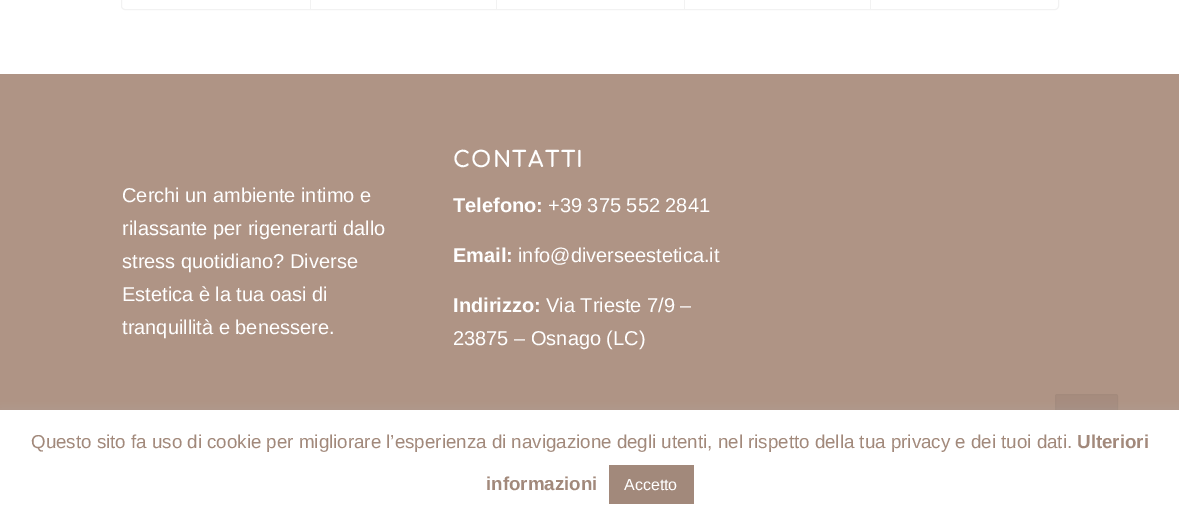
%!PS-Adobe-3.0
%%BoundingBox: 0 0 1179 518
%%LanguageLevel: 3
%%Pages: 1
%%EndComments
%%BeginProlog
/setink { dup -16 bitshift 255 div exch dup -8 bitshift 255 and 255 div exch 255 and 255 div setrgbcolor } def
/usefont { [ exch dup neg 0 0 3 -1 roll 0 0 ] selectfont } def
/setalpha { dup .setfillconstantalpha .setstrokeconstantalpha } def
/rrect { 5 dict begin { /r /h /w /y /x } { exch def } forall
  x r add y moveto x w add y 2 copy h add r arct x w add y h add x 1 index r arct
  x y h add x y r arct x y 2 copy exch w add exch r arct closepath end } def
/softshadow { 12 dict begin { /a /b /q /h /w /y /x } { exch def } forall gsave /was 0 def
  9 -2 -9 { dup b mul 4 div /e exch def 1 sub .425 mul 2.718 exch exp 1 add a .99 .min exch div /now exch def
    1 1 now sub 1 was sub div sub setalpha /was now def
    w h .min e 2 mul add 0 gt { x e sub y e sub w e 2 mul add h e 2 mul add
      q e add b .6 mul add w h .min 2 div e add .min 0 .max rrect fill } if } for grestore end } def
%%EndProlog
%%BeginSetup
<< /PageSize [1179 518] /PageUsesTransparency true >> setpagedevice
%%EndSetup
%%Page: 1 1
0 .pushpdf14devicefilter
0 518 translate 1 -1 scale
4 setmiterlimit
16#FFFFFF setink
0 0 1179 518 rectfill
16#F2F2F2 setink
121.5 -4.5 937 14 3.5 rrect stroke
[
    [310 0 1 9 16#F2F2F2]
    [496 0 1 9 16#F2F2F2]
    [684 0 1 9 16#F2F2F2]
    [870 0 1 9 16#F2F2F2]
    [0 74 1179 336 16#AF9485]
] { aload pop setink rectfill } forall
/LiberationSans-Regular 20 usefont
16#FFFFFF setink
[
    [(Cerchi un ambiente intimo e) 122 202]
    [(rilassante per rigenerarti dallo) 122 235]
    [(stress quotidiano? Diverse) 122 268]
    [(Estetica è la tua oasi di) 122 301]
    [(tranquillità e benessere.) 122 334]
] { aload pop moveto show } forall
/Comfortaa-Bold 22 usefont
453 167 moveto 1.25 0 (CONTATTI) ashow
gsave
453 130 275 243 rectclip
/LiberationSans-Bold 20 usefont
453 212 moveto (Telefono:) show
grestore
/LiberationSans-Regular 20 usefont
548 212 moveto (+39 375 552 2841) show
/LiberationSans-Bold 20 usefont
453 262 moveto (Email:) show
/LiberationSans-Regular 20 usefont
518 262 moveto (info@diverseestetica.it) show
/LiberationSans-Bold 20 usefont
453 312 moveto (Indirizzo:) show
/LiberationSans-Regular 20 usefont
546 312 moveto (Via Trieste 7/9 –) show
453 345 moveto (23875 – Osnago \(LC\)) show
0.7 setalpha
16#A2897B setink
1055 394 63 62 2.5 rrect fill
1055.5 394.5 62 61 2 rrect stroke
1 setalpha
16#ACABAB setink
0 409 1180 109 0 6 0.3 softshadow
16#FFFFFF setink
0 410 1179 108 rectfill
/LiberationSans-Regular 18.75 usefont
16#A2897B setink
31 448 moveto (Questo sito fa uso di cookie per migliorare l’esperienza di navigazione degli utenti, nel rispetto della tua privacy e dei tuoi dati.) show
/LiberationSans-Bold 18.75 usefont
1077 448 moveto (Ulteriori) show
486 490 moveto (informazioni) show
609 465 85 39 rectfill
/LiberationSans-Regular 16 usefont
16#FFFFFF setink
624 490 moveto (Accetto) show
.poppdf14devicefilter showpage
%%EOF
